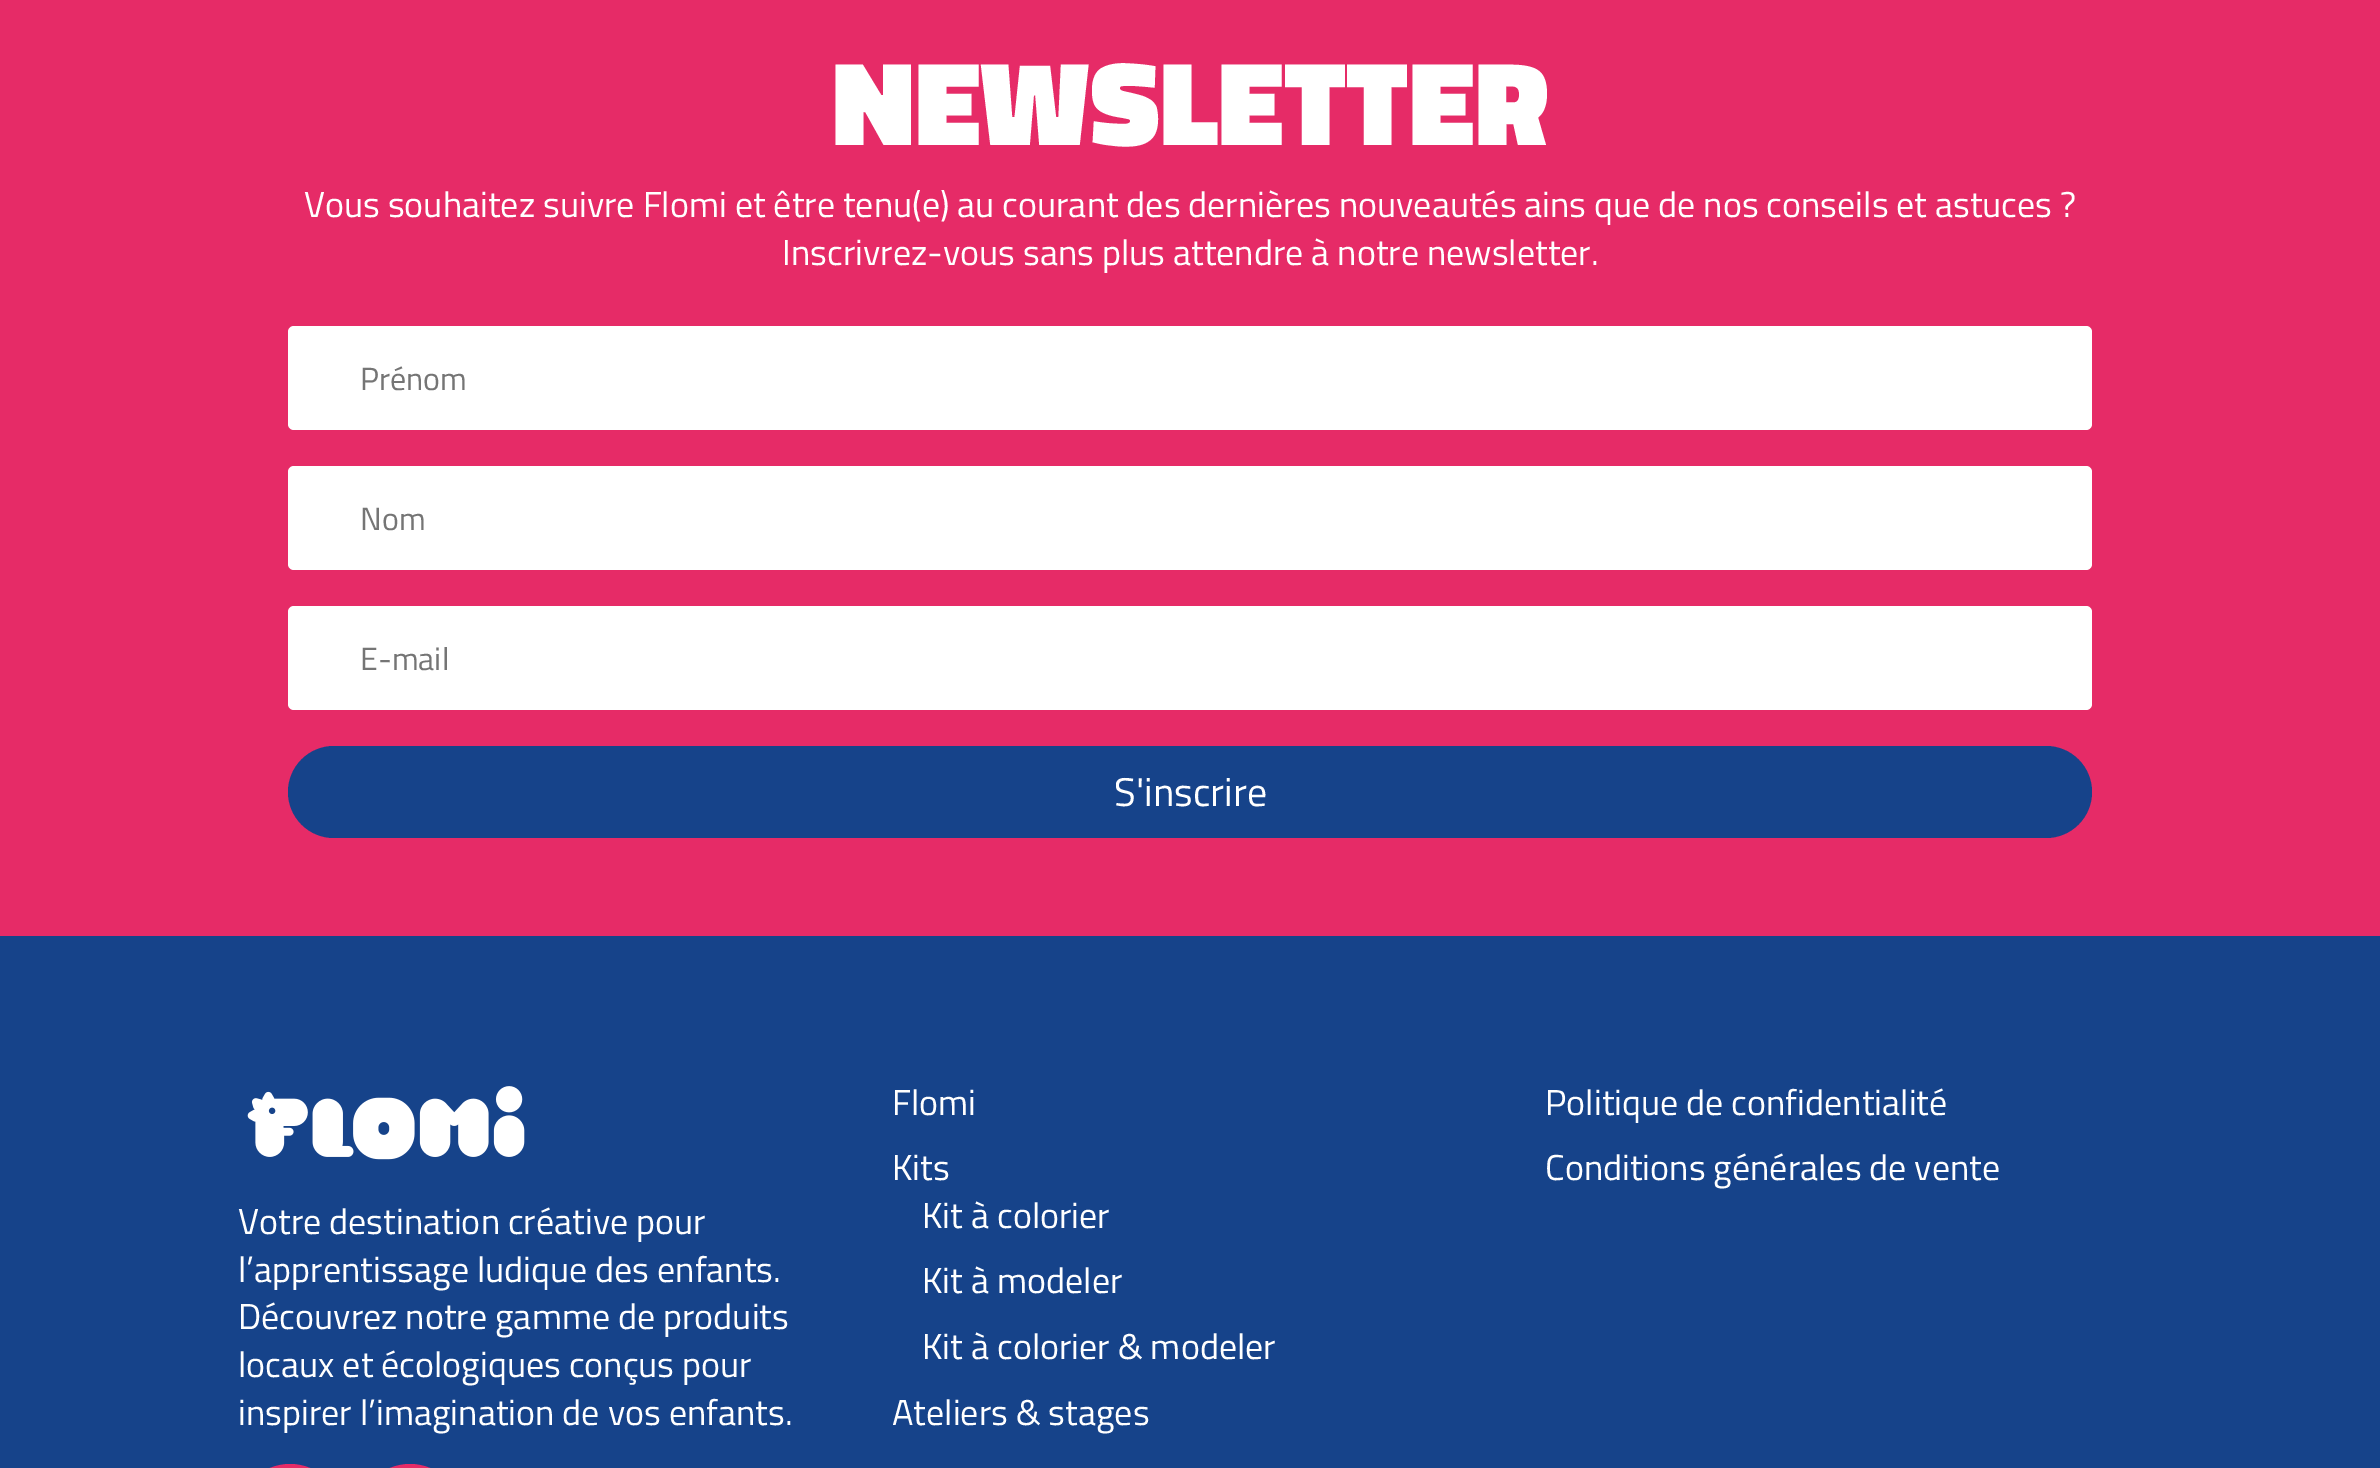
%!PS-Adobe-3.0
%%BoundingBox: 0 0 2380 1468
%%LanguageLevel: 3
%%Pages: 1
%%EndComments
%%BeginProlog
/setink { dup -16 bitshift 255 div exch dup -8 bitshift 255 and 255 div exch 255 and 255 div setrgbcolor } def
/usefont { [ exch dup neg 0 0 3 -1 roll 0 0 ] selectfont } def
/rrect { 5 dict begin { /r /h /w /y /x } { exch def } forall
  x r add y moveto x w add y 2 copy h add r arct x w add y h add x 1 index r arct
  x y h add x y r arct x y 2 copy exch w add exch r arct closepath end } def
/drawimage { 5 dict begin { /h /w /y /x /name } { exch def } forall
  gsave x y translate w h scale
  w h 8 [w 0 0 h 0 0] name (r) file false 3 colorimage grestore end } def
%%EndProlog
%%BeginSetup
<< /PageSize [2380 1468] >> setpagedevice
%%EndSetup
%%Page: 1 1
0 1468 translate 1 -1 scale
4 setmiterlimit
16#E62B67 setink
0 0 2380 1468 rectfill
/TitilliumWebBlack-Black 120 usefont
16#FFFFFF setink
832 145 moveto (NEWSLETTER) show
/TitilliumWeb-Regular 36 usefont
304 217 moveto (Vous souhaitez suivre Flomi et être tenu\(e\) au courant des dernières nouveautés ains que de nos conseils et astuces ?) show
782 265 moveto (Inscrivrez-vous sans plus attendre à notre newsletter.) show
288 326 1804 104 6 rrect fill
/TitilliumWeb-Regular 32 usefont
16#757575 setink
360 390 moveto (Prénom) show
16#FFFFFF setink
288 466 1804 104 6 rrect fill
16#757575 setink
360 530 moveto (Nom) show
16#FFFFFF setink
288 606 1804 104 6 rrect fill
16#757575 setink
360 670 moveto (E-mail) show
16#16438A setink
288 746 1804 92 46 rrect fill
/TitilliumWeb-Regular 40 usefont
16#FFFFFF setink
1114 806 moveto (S'inscrire) show
16#16438A setink
0 936 2380 532 rectfill
(img1.raw) 247 1086 278 74 drawimage
/TitilliumWeb-Regular 36 usefont
16#FFFFFF setink
[
    [(Votre destination créative pour) 238 1234]
    [(l’apprentissage ludique des enfants.) 238 1282]
    [(Découvrez notre gamme de produits) 238 1329]
    [(locaux et écologiques conçus pour) 238 1377]
    [(inspirer l’imagination de vos enfants.) 238 1425]
] { aload pop moveto show } forall
16#E62B67 setink
238 1464 104 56 52 rrect fill
358 1464 104 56 52 rrect fill
16#FFFFFF setink
[
    [(Flomi) 892 1115]
    [(Kits) 892 1180]
    [(Kit à colorier) 922 1228]
    [(Kit à modeler) 922 1293]
    [(Kit à colorier & modeler) 922 1359]
    [(Ateliers & stages) 892 1425]
    [(Politique de confidentialité) 1545 1115]
    [(Conditions générales de vente) 1545 1180]
] { aload pop moveto show } forall
showpage
%%EOF
